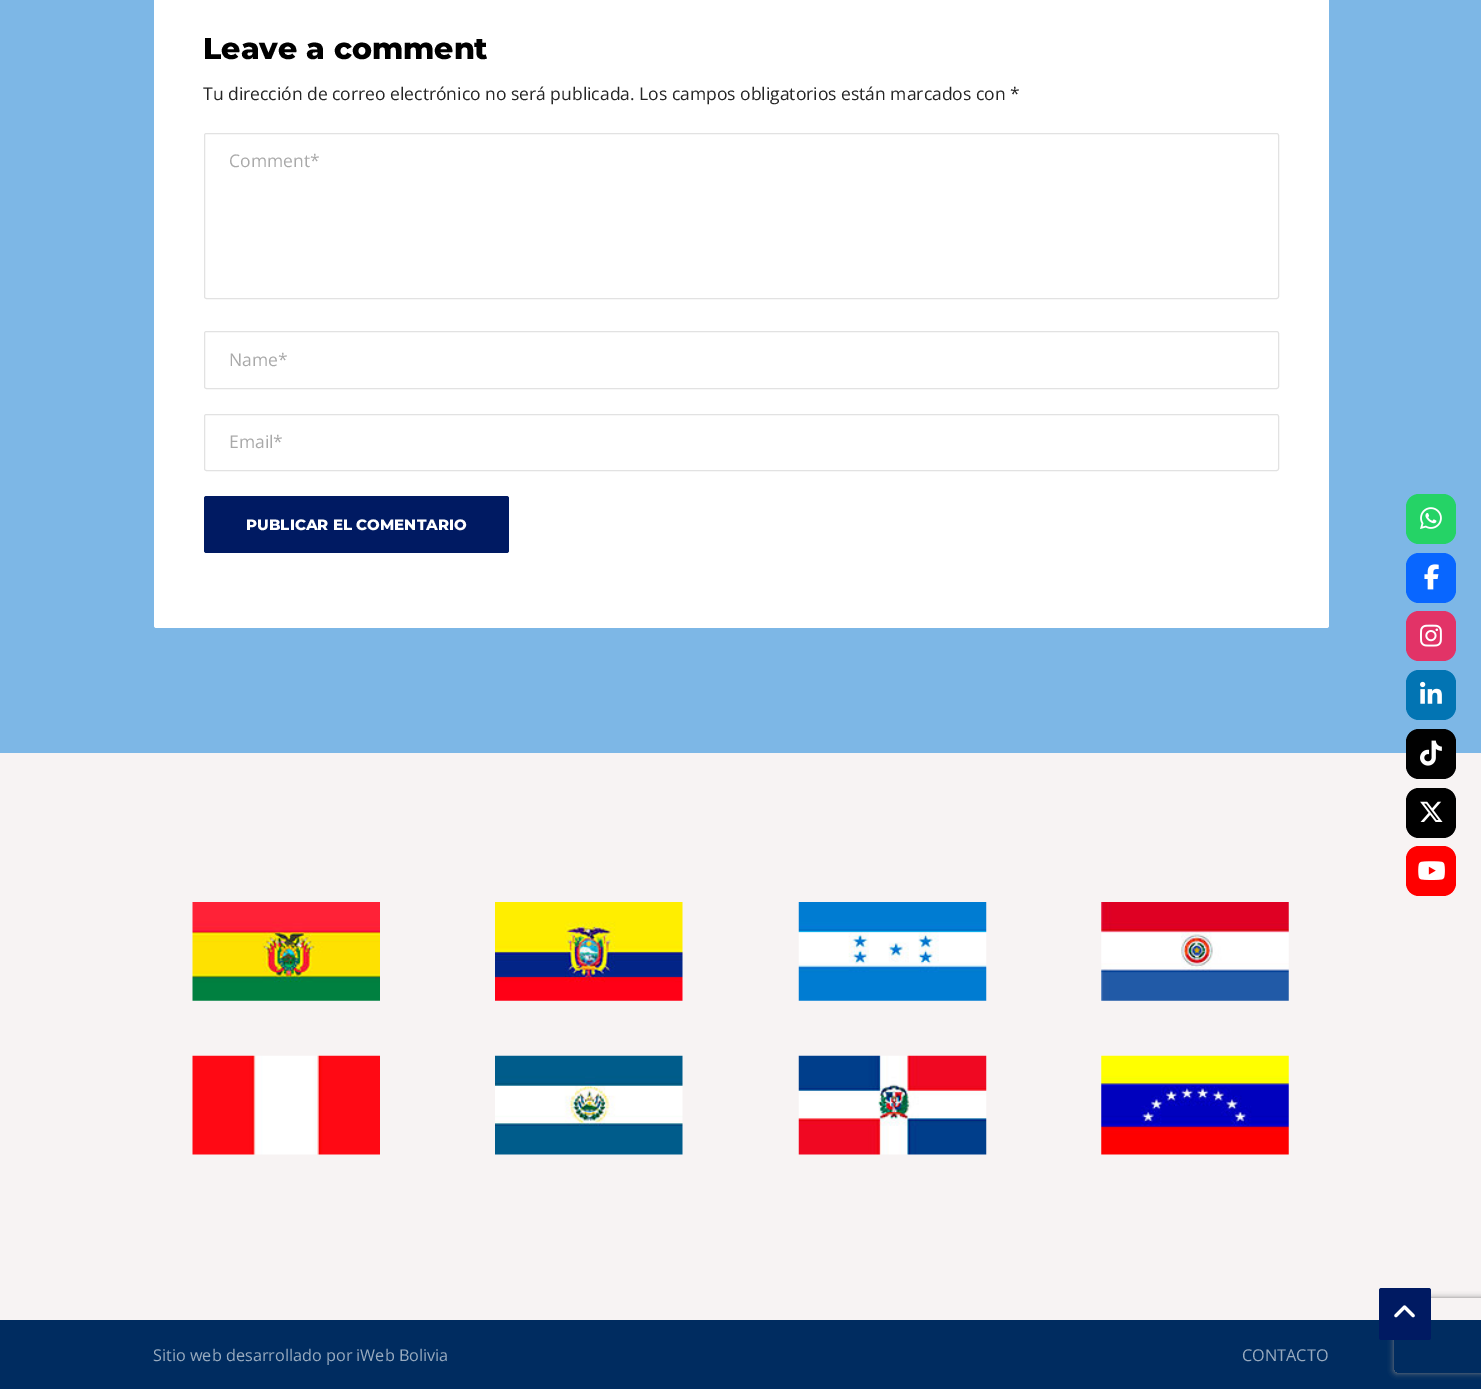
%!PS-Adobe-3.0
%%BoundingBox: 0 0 1481 1389
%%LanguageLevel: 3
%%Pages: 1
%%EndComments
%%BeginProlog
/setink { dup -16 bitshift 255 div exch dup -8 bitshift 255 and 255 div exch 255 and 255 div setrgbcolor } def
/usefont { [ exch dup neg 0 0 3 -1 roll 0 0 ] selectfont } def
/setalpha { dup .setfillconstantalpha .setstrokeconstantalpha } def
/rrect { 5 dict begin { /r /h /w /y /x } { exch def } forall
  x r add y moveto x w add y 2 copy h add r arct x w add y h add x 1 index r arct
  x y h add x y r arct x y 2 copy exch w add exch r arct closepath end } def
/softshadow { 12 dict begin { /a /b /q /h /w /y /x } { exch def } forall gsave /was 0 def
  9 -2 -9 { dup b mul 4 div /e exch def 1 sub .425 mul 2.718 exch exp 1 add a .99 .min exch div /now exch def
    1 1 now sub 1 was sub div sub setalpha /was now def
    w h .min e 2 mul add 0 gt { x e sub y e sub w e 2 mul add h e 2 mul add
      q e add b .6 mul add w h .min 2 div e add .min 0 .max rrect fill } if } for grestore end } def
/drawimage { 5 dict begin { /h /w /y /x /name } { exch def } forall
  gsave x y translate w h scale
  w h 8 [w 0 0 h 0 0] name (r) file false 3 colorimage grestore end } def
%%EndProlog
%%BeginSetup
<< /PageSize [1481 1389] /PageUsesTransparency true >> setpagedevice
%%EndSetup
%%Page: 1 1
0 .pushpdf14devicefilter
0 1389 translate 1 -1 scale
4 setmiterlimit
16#7DB7E6 setink
0 0 1481 1389 rectfill
16#FFFFFF setink
154 -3 1175 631 2.5 rrect fill
/Montserrat-ExtraBold 30 usefont
16#000000 setink
203 59 moveto (Leave a comment) show
/OpenSans-Regular 17.5 usefont
16#252525 setink
203 100 moveto (Tu dirección de correo electrónico no será publicada. Los campos obligatorios están marcados con *) show
16#E2E2E2 setink
204.5 133.5 1074 165 2 rrect stroke
16#A9A9A9 setink
229 167 moveto (Comment*) show
16#E2E2E2 setink
204.5 331.5 1074 57 2 rrect stroke
16#A9A9A9 setink
229 366 moveto (Name*) show
16#E2E2E2 setink
204.5 414.5 1074 56 2 rrect stroke
16#A9A9A9 setink
229 448 moveto (Email*) show
16#001A62 setink
204 496 305 57 2.5 rrect fill
/Montserrat-ExtraBold 15 usefont
16#FFFFFF setink
246 530 moveto (PUBLICAR EL COMENTARIO) show
16#F7F3F3 setink
0 753 1481 567 rectfill
(img1.raw) 192 902 188 99 drawimage
(img2.raw) 192 1055 188 100 drawimage
(img3.raw) 495 902 188 99 drawimage
(img4.raw) 495 1055 188 100 drawimage
(img5.raw) 798 902 189 99 drawimage
(img6.raw) 798 1055 189 100 drawimage
(img7.raw) 1101 902 188 99 drawimage
(img8.raw) 1101 1055 188 100 drawimage
16#002C60 setink
0 1320 1481 69 rectfill
gsave
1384 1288 moveto 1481 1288 lineto 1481 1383 lineto 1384 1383 lineto closepath 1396.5 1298 moveto 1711.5 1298 lineto 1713 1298 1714 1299 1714 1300.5 curveto 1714 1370.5 lineto 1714 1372 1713 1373 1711.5 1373 curveto 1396.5 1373 lineto 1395 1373 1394 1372 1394 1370.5 curveto 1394 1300.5 lineto 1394 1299 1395 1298 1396.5 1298 curveto closepath eoclip newpath
16#808080 setink
1394 1298 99 75 2.5 3 1 softshadow
grestore
16#001A62 setink
1379 1288 52 52 2.5 rrect fill
(img9.raw) 1394 1305 21 13 drawimage
/OpenSans-Regular 16.25 usefont
16#99ABBF setink
153 1361 moveto (Sitio web desarrollado por iWeb Bolivia) show
1242 1361 moveto (CONTACTO) show
16#25D366 setink
1406 494 50 50 13 rrect fill
(img10.raw) 1420 507 22 22 drawimage
16#0866FF setink
1406 553 50 50 13 rrect fill
(img11.raw) 1424 564 15 26 drawimage
16#E23367 setink
1406 611 50 50 13 rrect fill
(img12.raw) 1420 624 22 23 drawimage
16#0274B3 setink
1406 670 50 50 13 rrect fill
(img13.raw) 1420 681 22 23 drawimage
16#010101 setink
1406 729 50 50 13 rrect fill
(img14.raw) 1420 740 22 26 drawimage
16#000000 setink
1406 788 50 50 13 rrect fill
(img15.raw) 1420 801 23 21 drawimage
16#FF0000 setink
1406 846 50 50 13 rrect fill
(img16.raw) 1418 861 27 19 drawimage
.poppdf14devicefilter showpage
%%EOF
